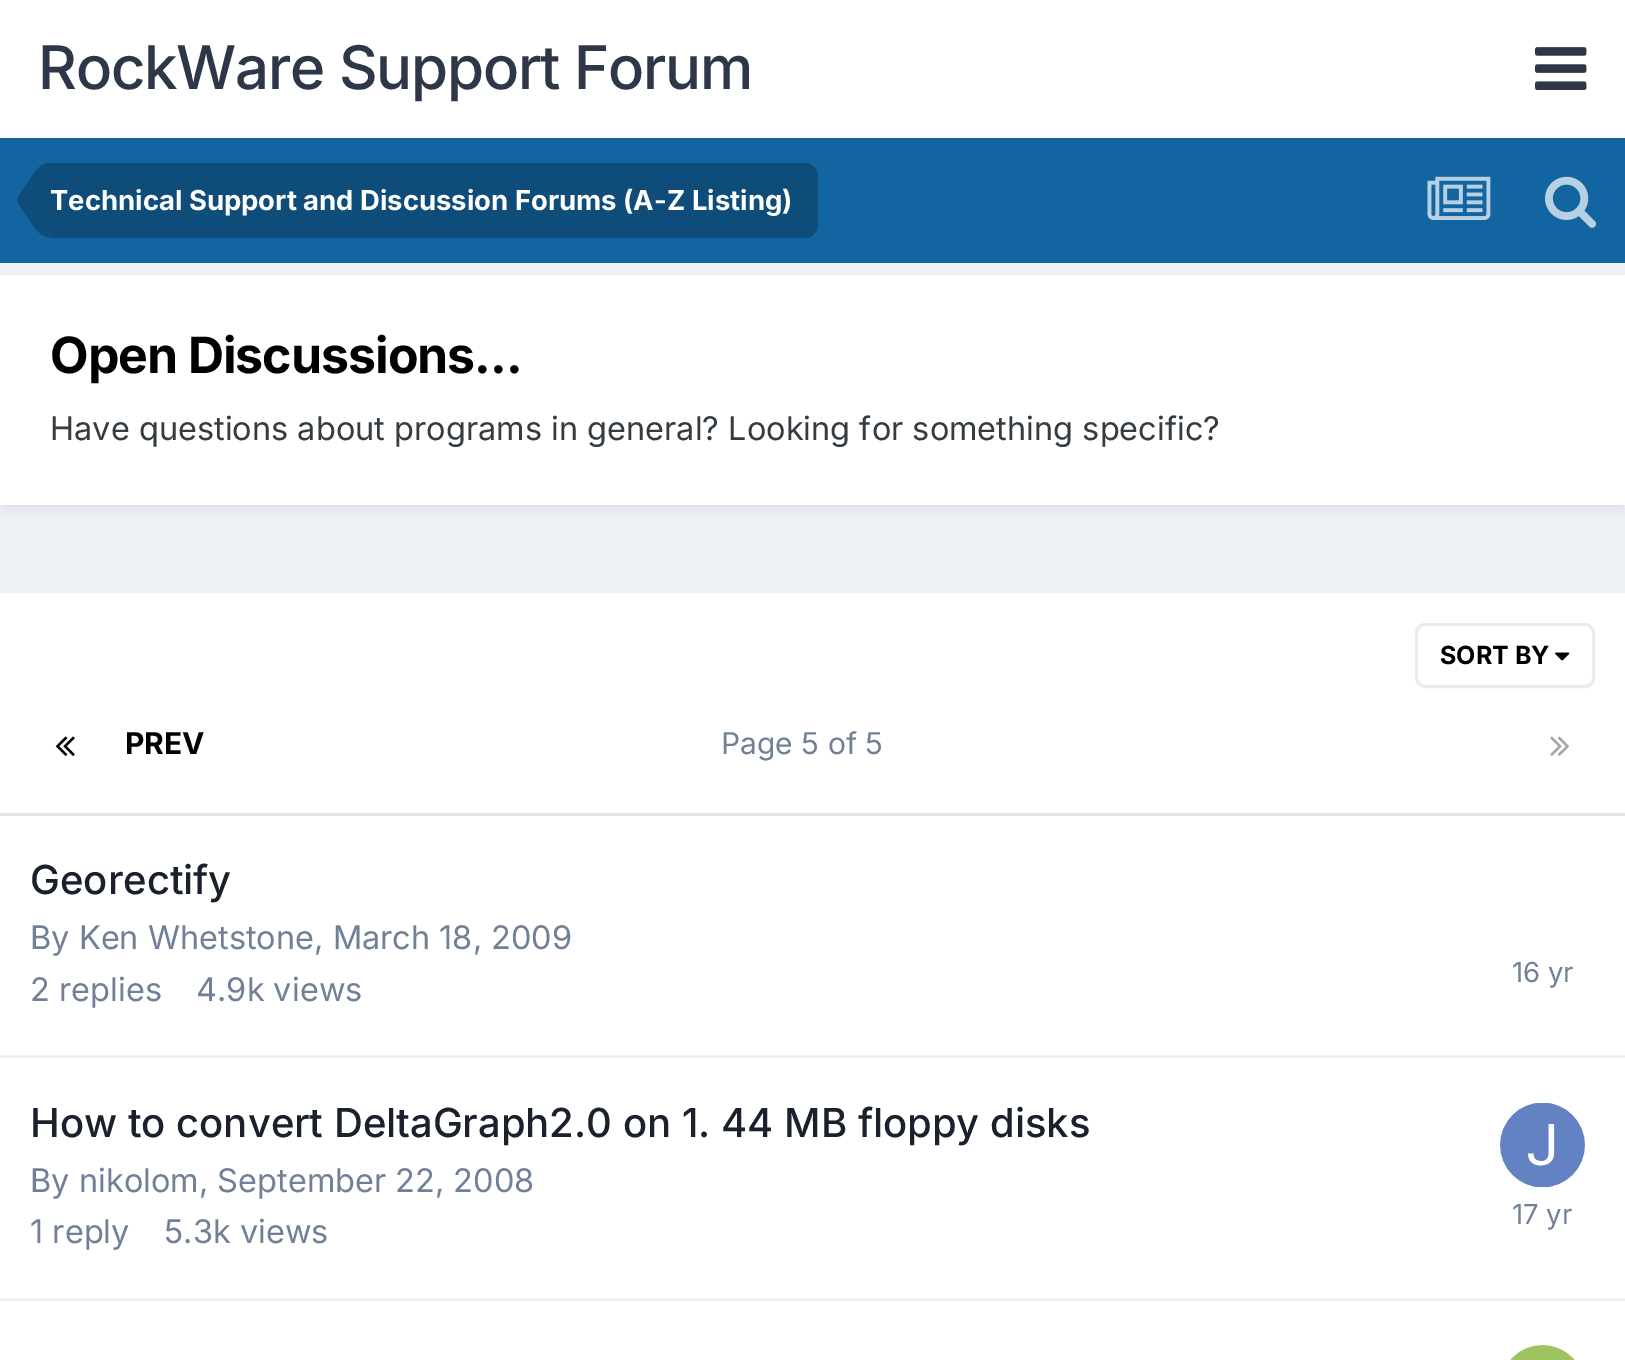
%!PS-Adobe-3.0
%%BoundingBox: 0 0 1625 1360
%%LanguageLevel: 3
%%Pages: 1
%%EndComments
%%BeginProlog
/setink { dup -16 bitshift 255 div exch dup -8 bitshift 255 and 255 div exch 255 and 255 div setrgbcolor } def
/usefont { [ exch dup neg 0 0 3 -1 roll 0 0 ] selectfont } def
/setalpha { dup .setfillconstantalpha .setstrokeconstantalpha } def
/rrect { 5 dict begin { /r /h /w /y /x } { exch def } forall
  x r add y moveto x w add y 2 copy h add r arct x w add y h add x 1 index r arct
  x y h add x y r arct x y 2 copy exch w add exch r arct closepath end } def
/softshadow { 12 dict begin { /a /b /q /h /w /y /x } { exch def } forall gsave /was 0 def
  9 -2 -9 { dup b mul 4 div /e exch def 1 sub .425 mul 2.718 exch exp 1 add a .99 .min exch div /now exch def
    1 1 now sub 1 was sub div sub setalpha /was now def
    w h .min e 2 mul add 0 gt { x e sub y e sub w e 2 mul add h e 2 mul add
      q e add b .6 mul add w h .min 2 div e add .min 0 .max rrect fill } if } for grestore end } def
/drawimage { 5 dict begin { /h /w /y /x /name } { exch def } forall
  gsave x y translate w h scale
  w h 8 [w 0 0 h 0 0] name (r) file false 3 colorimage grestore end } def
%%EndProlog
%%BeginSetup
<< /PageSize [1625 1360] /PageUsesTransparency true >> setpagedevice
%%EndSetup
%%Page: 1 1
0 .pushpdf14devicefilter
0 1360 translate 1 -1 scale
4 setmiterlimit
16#EDF0F4 setink
0 0 1625 1360 rectfill
16#FFFFFF setink
0 0 1625 138 rectfill
/Inter-Medium 60 usefont
16#2D3748 setink
38 89 moveto -1.25 0 (RockWare Support Forum) ashow
(img1.raw) 1535 47 52 43 drawimage
16#1265A1 setink
0 138 1625 125 rectfill
16#0E4C79 setink
50 163 moveto 805 163 lineto 812 163 818 169 818 176 curveto 818 225 lineto 818 232 812 238 805 238 curveto 50 238 lineto closepath fill
50 200 moveto 50 237 lineto 44.5 237 39 234 35 228 curveto 19 205 lineto 18 203.5 17.5 202 17.5 200 curveto closepath fill
50 200 moveto 17.5 200 lineto 17.5 198 18 196.5 19 195 curveto 35 172 lineto 39 166 44.5 163 50 163 curveto closepath fill
/Inter-Bold 27.5 usefont
16#FFFFFF setink
50 210 moveto (Technical Support and Discussion Forums \(A-Z Listing\)) show
(img2.raw) 1427 176 64 44 drawimage
(img3.raw) 1545 176 52 52 drawimage
16#2D3748 setink
3 283 1620 225 0 5 0.1 softshadow
16#FFFFFF setink
0 275 1625 230 rectfill
/Inter-Bold 50 usefont
16#000000 setink
50 373 moveto -1 0 (Open Discussions...) ashow
/Inter-Regular 32.5 usefont
16#353C41 setink
50 440 moveto (Have questions about programs in general? Looking for something specific?) show
16#FFFFFF setink
0 593 1625 767 rectfill
16#E1E2E3 setink
0 813 1625 3 rectfill
(img4.raw) 1555 652 15 9 drawimage
16#EBECEC setink
3 setlinewidth
1416.5 624.5 177 62 8.5 rrect stroke
/Inter-Bold 25 usefont
16#000000 setink
1440 664 moveto (SORT BY) show
(img5.raw) 55 736 20 20 drawimage
/Inter-Bold 30 usefont
125 754 moveto (PREV) show
/Inter-Regular 30 usefont
16#718096 setink
721 754 moveto (Page 5 of 5) show
(img6.raw) 1550 736 19 20 drawimage
16#F1F2F5 setink
0 1055 1625 3 rectfill
/Inter-Medium 40 usefont
16#1A202C setink
30 894 moveto (Georectify) show
/Inter-Regular 32.5 usefont
16#718096 setink
[
    [(By Ken Whetstone, March 18, 2009) 30 949]
    [(2 replies) 30 1001]
    [(4.9k views) 196 1001]
] { aload pop moveto show } forall
/Inter-Regular 27.5 usefont
1512 982 moveto (16 yr) show
16#F1F2F5 setink
0 1298 1625 3 rectfill
/Inter-Medium 40 usefont
16#1A202C setink
30 1137 moveto (How to convert DeltaGraph2.0 on 1. 44 MB floppy disks) show
/Inter-Regular 32.5 usefont
16#718096 setink
[
    [(By nikolom, September 22, 2008) 30 1192]
    [(1 reply) 30 1243]
    [(5.3k views) 164 1243]
] { aload pop moveto show } forall
(img7.raw) 1500 1103 85 85 drawimage
/Inter-Regular 27.5 usefont
1512 1224 moveto (17 yr) show
(img8.raw) 1510 1345 65 15 drawimage
.poppdf14devicefilter showpage
%%EOF
